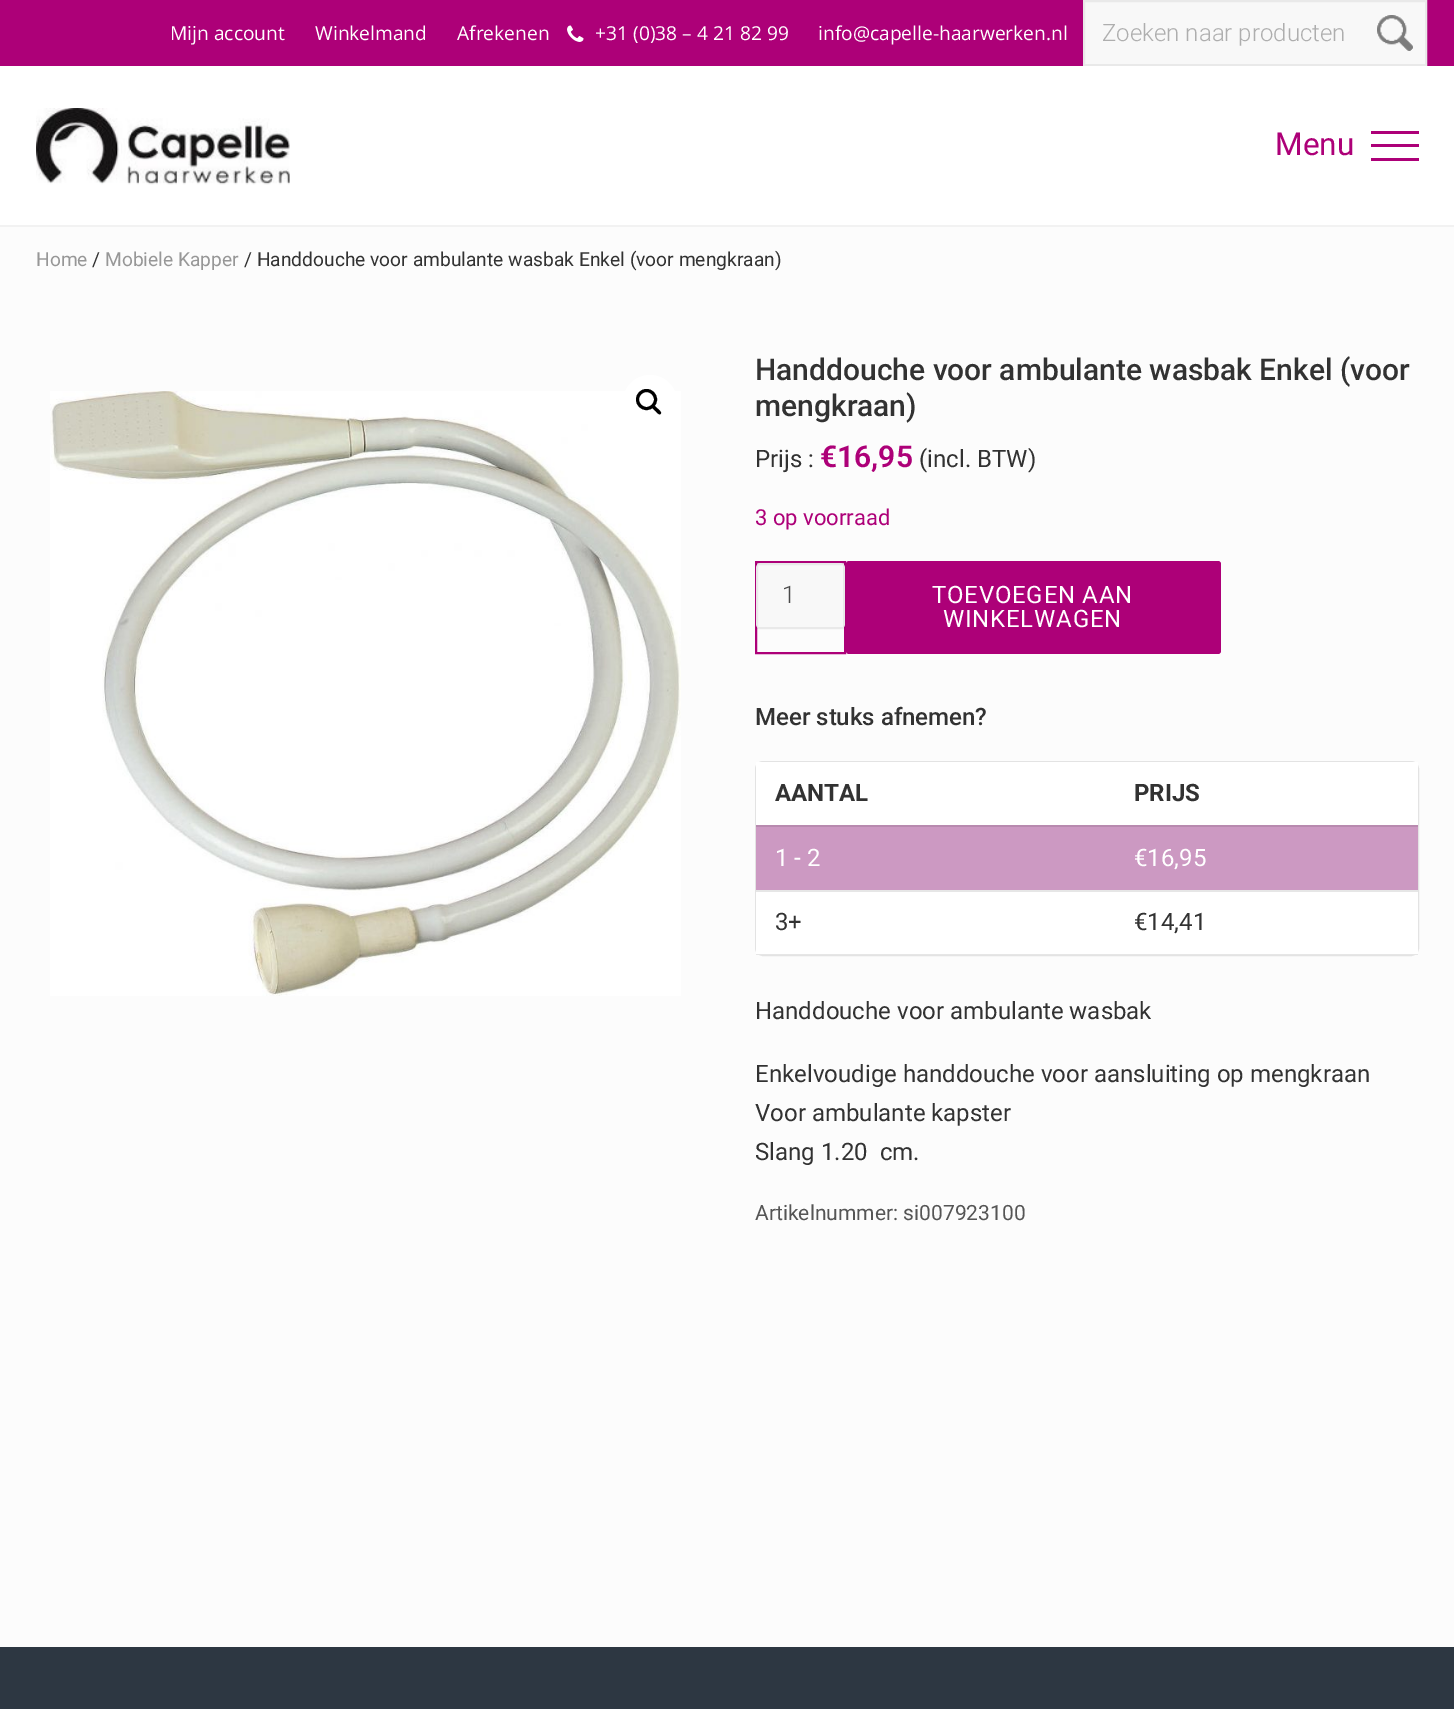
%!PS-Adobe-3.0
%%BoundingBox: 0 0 1454 1709
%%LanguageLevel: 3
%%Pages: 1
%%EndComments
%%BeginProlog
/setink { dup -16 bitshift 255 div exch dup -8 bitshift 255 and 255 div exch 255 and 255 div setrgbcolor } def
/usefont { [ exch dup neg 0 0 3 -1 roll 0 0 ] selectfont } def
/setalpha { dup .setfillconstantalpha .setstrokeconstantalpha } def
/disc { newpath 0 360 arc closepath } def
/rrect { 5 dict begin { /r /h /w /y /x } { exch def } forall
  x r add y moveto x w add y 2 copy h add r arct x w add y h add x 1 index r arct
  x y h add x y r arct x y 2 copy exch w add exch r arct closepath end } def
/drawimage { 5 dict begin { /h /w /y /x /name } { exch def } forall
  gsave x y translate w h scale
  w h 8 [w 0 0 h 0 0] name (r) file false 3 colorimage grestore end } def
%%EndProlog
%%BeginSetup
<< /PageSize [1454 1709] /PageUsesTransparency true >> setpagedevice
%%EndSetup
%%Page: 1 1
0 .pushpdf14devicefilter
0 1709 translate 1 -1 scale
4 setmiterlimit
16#FCFCFC setink
0 0 1454 1709 rectfill
16#AD0078 setink
0 0 1454 66 rectfill
/OpenSans-Regular 19.2 usefont
16#FFFFFF setink
[
    [(Mijn account) 170 40]
    [(Winkelmand) 315 40]
    [(Afrekenen) 457 40]
] { aload pop moveto show } forall
(img1.raw) 567 25 17 17 drawimage
595 40 moveto (+31 \(0\)38 – 4 21 82 99) show
818 40 moveto (info@capelle-haarwerken.nl) show
16#F8F8F8 setink
1084 1 moveto 1426 1 lineto 1426 65 lineto 1084 65 lineto closepath gsave fill grestore
16#E9E9E9 setink
2 setlinewidth
stroke
/Roboto-Light 24 usefont
16#AEAEAE setink
1102 41 moveto (Zoeken naar producten) show
(img2.raw) 1377 15 36 36 drawimage
16#FFFFFF setink
0 66 1454 159 rectfill
16#F2F2F2 setink
0 225 1454 2 rectfill
(img3.raw) 36 108 254 77 drawimage
/Roboto-Regular 31.5 usefont
16#AD0078 setink
1275 155 moveto (Menu) show
[
    [1371 144 48 3 16#AD0078]
    [1371 131 48 3 16#AD0078]
    [1371 158 48 3 16#AD0078]
] { aload pop setink rectfill } forall
/Roboto-Regular 19.2 usefont
16#979797 setink
36 266 moveto (Home) show
16#323232 setink
92 266 moveto (/) show
16#979797 setink
105 266 moveto (Mobiele Kapper) show
16#323232 setink
244 266 moveto (/ Handdouche voor ambulante wasbak Enkel \(voor mengkraan\)) show
(img4.raw) 50 391 631 605 drawimage
16#FFFFFF setink
650 402 27 disc fill
16#000000 setink
3 setlinewidth
646.5 399.5 9 disc stroke
652 405.5 moveto 654 404 656.5 408 657.5 408.5 curveto 658.5 409.5 662.5 412.5 660.5 414 curveto 659 415.5 656 411.5 655.5 411 curveto 654.5 410 650.5 407 652 405.5 curveto closepath fill
/Roboto-Medium 30 usefont
16#323232 setink
755 380 moveto (Handdouche voor ambulante wasbak Enkel \(voor) show
755 416 moveto (mengkraan\)) show
/Roboto-Regular 24 usefont
755 467 moveto (Prijs :) show
/Roboto-SemiBold 30 usefont
16#AD0078 setink
820 467 moveto (€16,95) show
/Roboto-Regular 24 usefont
16#323232 setink
919 467 moveto (\(incl. BTW\)) show
/Roboto-Regular 22 usefont
16#AD0078 setink
755 525 moveto (3 op voorraad) show
2 setlinewidth
756 562 89 91 rectstroke
16#F8F8F8 setink
756 563 89 66 5 rrect fill
0.06 setalpha
16#000000 setink
757 564 87 64 rectstroke
/Roboto-Light 24 usefont
1 setalpha
16#4A4A4A setink
782 603 moveto (1) show
16#AD0078 setink
846 561 375 93 3 rrect fill
/Roboto-Regular 24 usefont
16#FFFFFF setink
932 603 moveto 0.75 0 (TOEVOEGEN AAN) ashow
943 627 moveto 0.75 0 (WINKELWAGEN) ashow
/Roboto-Medium 24 usefont
16#323232 setink
755 725 moveto (Meer stuks afnemen?) show
16#E3E3E3 setink
756 762 662 193 7 rrect stroke
16#FFFFFF setink
756 762 662 63 rectfill
/Roboto-Bold 24 usefont
16#323232 setink
775 801 moveto (AANTAL) show
1134 801 moveto (PRIJS) show
[
    [756 954 662 1 16#E6E6E6]
    [756 827 662 63 16#CC99C2]
    [756 825 662 2 16#B88AAF]
] { aload pop setink rectfill } forall
/Roboto-Regular 24 usefont
16#FFFFFF setink
775 866 moveto (1 - 2) show
1134 866 moveto (€16,95) show
756 892 662 62 rectfill
16#E6E6E6 setink
756 890 662 2 rectfill
16#323232 setink
[
    [(3+) 775 930]
    [(€14,41) 1134 930]
    [(Handdouche voor ambulante wasbak) 755 1019]
    [(Enkelvoudige handdouche voor aansluiting op mengkraan) 755 1082]
    [(Voor ambulante kapster) 755 1121]
    [(Slang 1.20  cm.) 755 1160]
] { aload pop moveto show } forall
/Roboto-Regular 21 usefont
16#555555 setink
755 1220 moveto (Artikelnummer: si007923100) show
16#2D3742 setink
0 1647 1454 62 rectfill
.poppdf14devicefilter showpage
%%EOF
